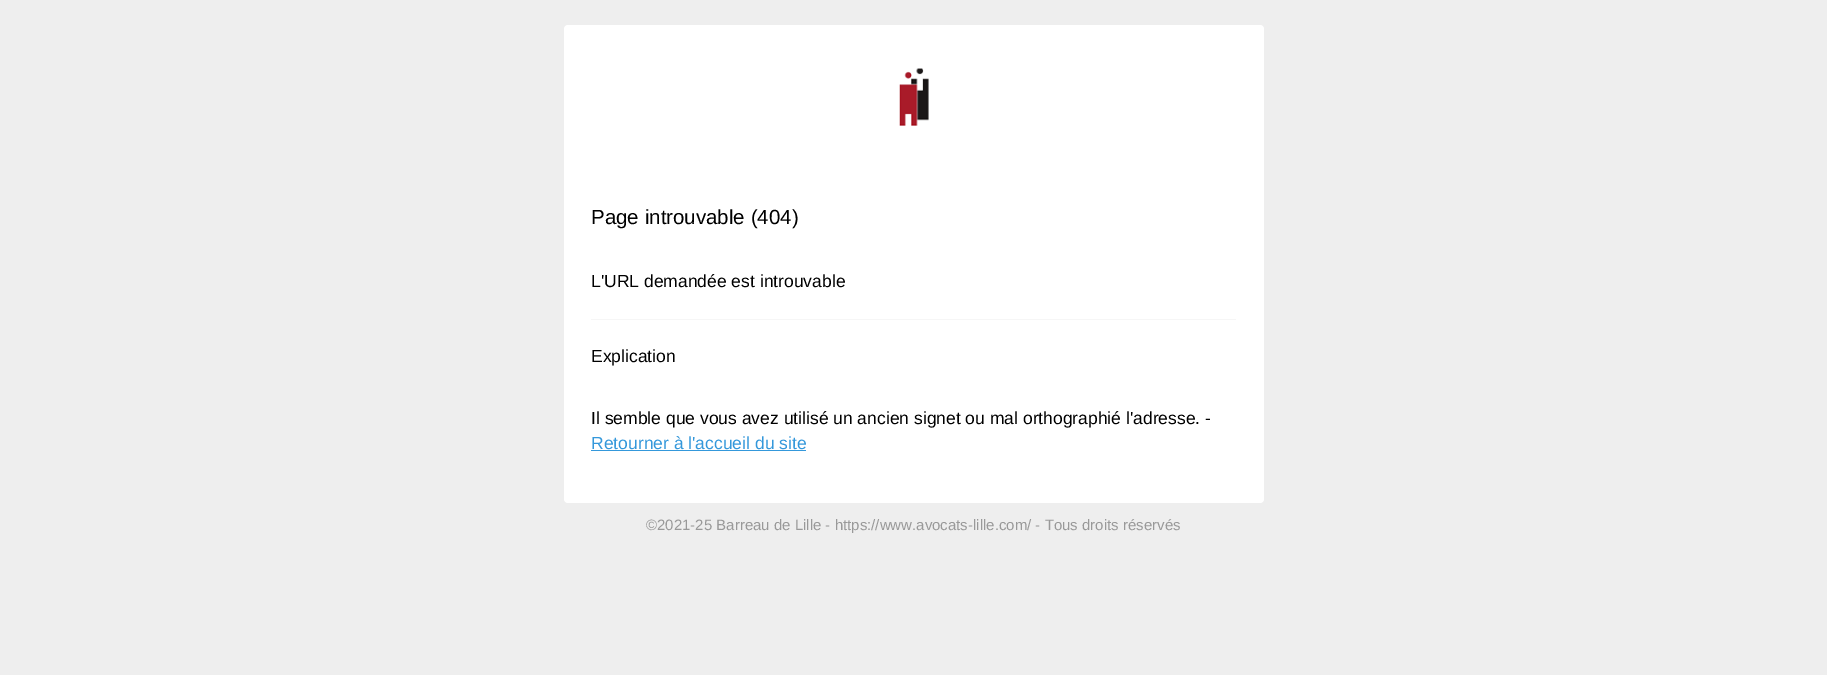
%!PS-Adobe-3.0
%%BoundingBox: 0 0 1827 675
%%LanguageLevel: 3
%%Pages: 1
%%EndComments
%%BeginProlog
/setink { dup -16 bitshift 255 div exch dup -8 bitshift 255 and 255 div exch 255 and 255 div setrgbcolor } def
/usefont { [ exch dup neg 0 0 3 -1 roll 0 0 ] selectfont } def
/rrect { 5 dict begin { /r /h /w /y /x } { exch def } forall
  x r add y moveto x w add y 2 copy h add r arct x w add y h add x 1 index r arct
  x y h add x y r arct x y 2 copy exch w add exch r arct closepath end } def
/drawimage { 5 dict begin { /h /w /y /x /name } { exch def } forall
  gsave x y translate w h scale
  w h 8 [w 0 0 h 0 0] name (r) file false 3 colorimage grestore end } def
%%EndProlog
%%BeginSetup
<< /PageSize [1827 675] >> setpagedevice
%%EndSetup
%%Page: 1 1
0 675 translate 1 -1 scale
4 setmiterlimit
16#EEEEEE setink
0 0 1827 675 rectfill
16#FFFFFF setink
564 25 700 478 4 rrect fill
(img1.raw) 899 68 30 58 drawimage
/LiberationSans-Regular 20.5 usefont
16#000000 setink
591 224 moveto (Page introuvable \(404\)) show
/LiberationSans-Regular 17.5 usefont
591 287 moveto (L'URL demandée est introuvable) show
16#F6F6F6 setink
591 319 645 1 rectfill
16#000000 setink
591 362 moveto (Explication) show
591 424 moveto (Il semble que vous avez utilisé un ancien signet ou mal orthographié l'adresse. -) show
16#3498DB setink
591 449 moveto (Retourner à l'accueil du site) show
591 450 215 1 rectfill
/LiberationSans-Regular 15 usefont
16#999999 setink
646 530 moveto (©2021-25 Barreau de Lille - https://www.avocats-lille.com/ - Tous droits réservés) show
showpage
%%EOF
